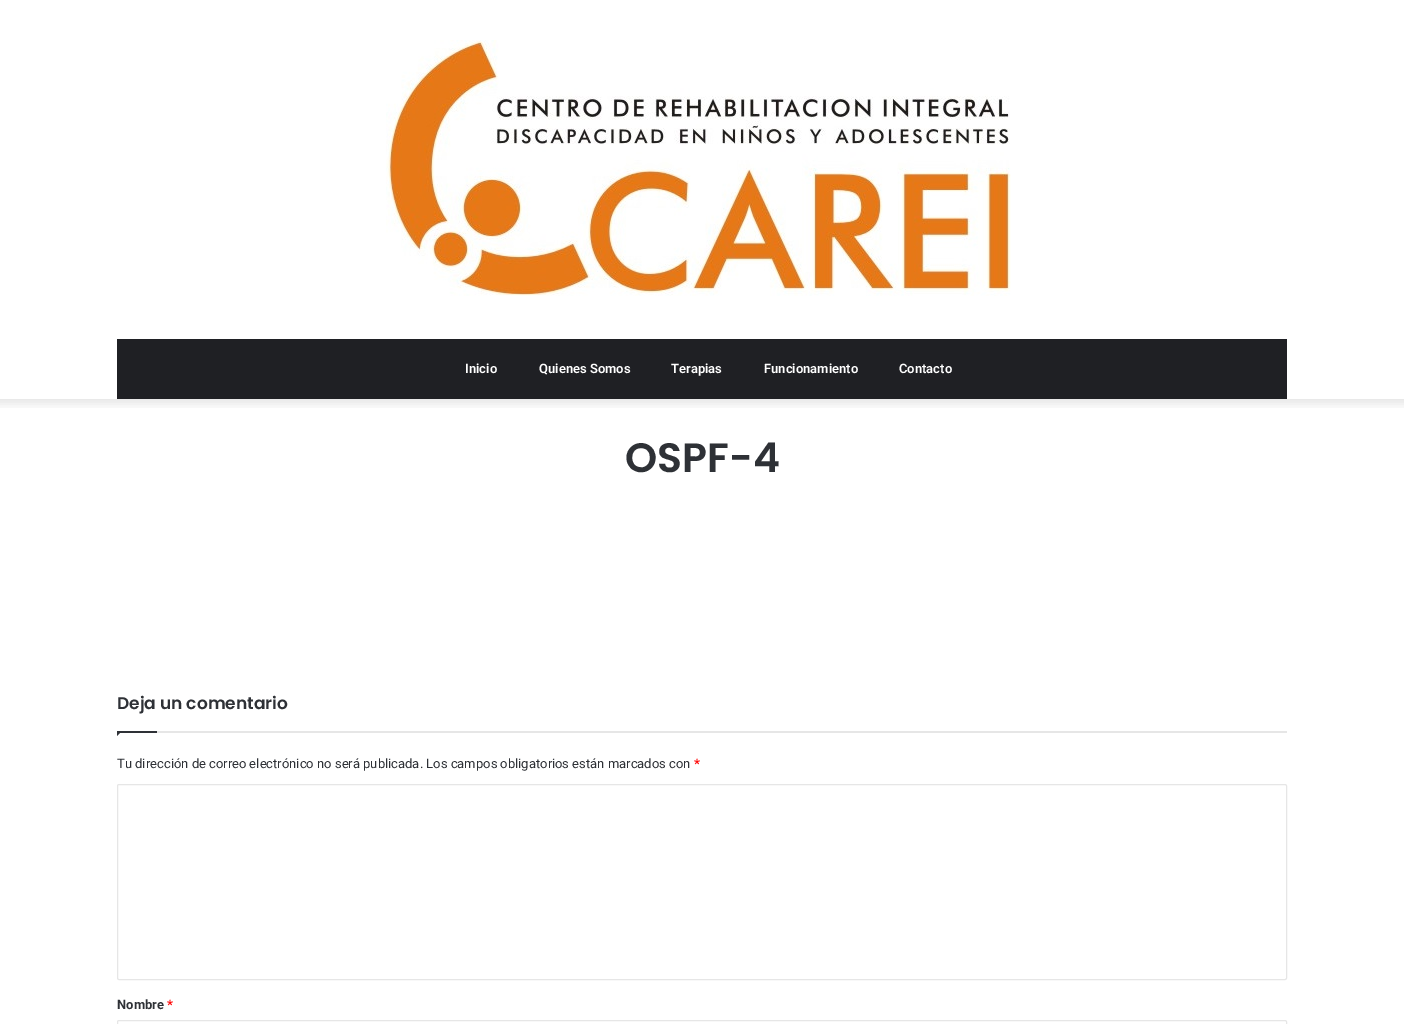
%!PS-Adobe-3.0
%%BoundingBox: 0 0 1404 1024
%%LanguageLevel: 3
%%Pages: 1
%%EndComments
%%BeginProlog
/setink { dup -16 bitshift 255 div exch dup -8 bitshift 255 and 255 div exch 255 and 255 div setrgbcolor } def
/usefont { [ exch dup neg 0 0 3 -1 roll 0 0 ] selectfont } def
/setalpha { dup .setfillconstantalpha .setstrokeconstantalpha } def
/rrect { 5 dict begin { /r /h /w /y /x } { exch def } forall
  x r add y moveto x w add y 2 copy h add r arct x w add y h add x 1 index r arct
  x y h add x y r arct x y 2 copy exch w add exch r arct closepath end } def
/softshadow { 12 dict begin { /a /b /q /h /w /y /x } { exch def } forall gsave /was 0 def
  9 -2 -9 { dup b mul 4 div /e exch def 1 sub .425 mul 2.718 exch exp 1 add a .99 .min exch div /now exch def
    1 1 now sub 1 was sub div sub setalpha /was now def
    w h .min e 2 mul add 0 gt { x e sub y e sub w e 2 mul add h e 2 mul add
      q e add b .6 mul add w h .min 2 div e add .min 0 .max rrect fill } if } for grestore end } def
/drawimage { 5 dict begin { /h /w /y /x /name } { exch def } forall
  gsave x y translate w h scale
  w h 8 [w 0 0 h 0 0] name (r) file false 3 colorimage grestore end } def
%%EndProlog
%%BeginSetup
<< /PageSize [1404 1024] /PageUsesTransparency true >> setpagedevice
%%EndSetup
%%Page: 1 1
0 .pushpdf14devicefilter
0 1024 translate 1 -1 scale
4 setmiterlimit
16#FFFFFF setink
0 0 1404 1024 rectfill
gsave
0 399 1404 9 rectclip
16#000000 setink
-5 -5 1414 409 0 5 0.1 softshadow
grestore
(img1.raw) 386 40 625 256 drawimage
16#1F2024 setink
117 339 1170 60 rectfill
/Roboto-SemiBold 13 usefont
16#FFFFFF setink
[
    [(Inicio) 465 373]
    [(Quienes Somos) 539 373]
    [(Terapias) 671 373]
    [(Funcionamiento) 764 373]
    [(Contacto) 899 373]
] { aload pop moveto show } forall
/Poppins-SemiBold 41 usefont
16#2E3136 setink
625 472 moveto (OSPF-4) show
16#E6E6E6 setink
157 731 1130 2 rectfill
/Poppins-SemiBold 17 usefont
16#2E3136 setink
117 709 moveto (Deja un comentario) show
117 731 moveto 122 731 lineto 117 736 lineto closepath fill
117 731 40 2 rectfill
/Roboto-Regular 13 usefont
117 768 moveto (Tu dirección de correo electrónico no será publicada. Los campos obligatorios están marcados con) show
/Roboto-Bold 13 usefont
16#FF0303 setink
694 768 moveto (*) show
16#E6E6E6 setink
117.5 784.5 1169 195 1.5 rrect stroke
16#2E3136 setink
117 1009 moveto (Nombre) show
16#FF0303 setink
167 1009 moveto (*) show
16#E6E6E6 setink
117.5 1020.5 1169 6 1.5 rrect stroke
.poppdf14devicefilter showpage
%%EOF
